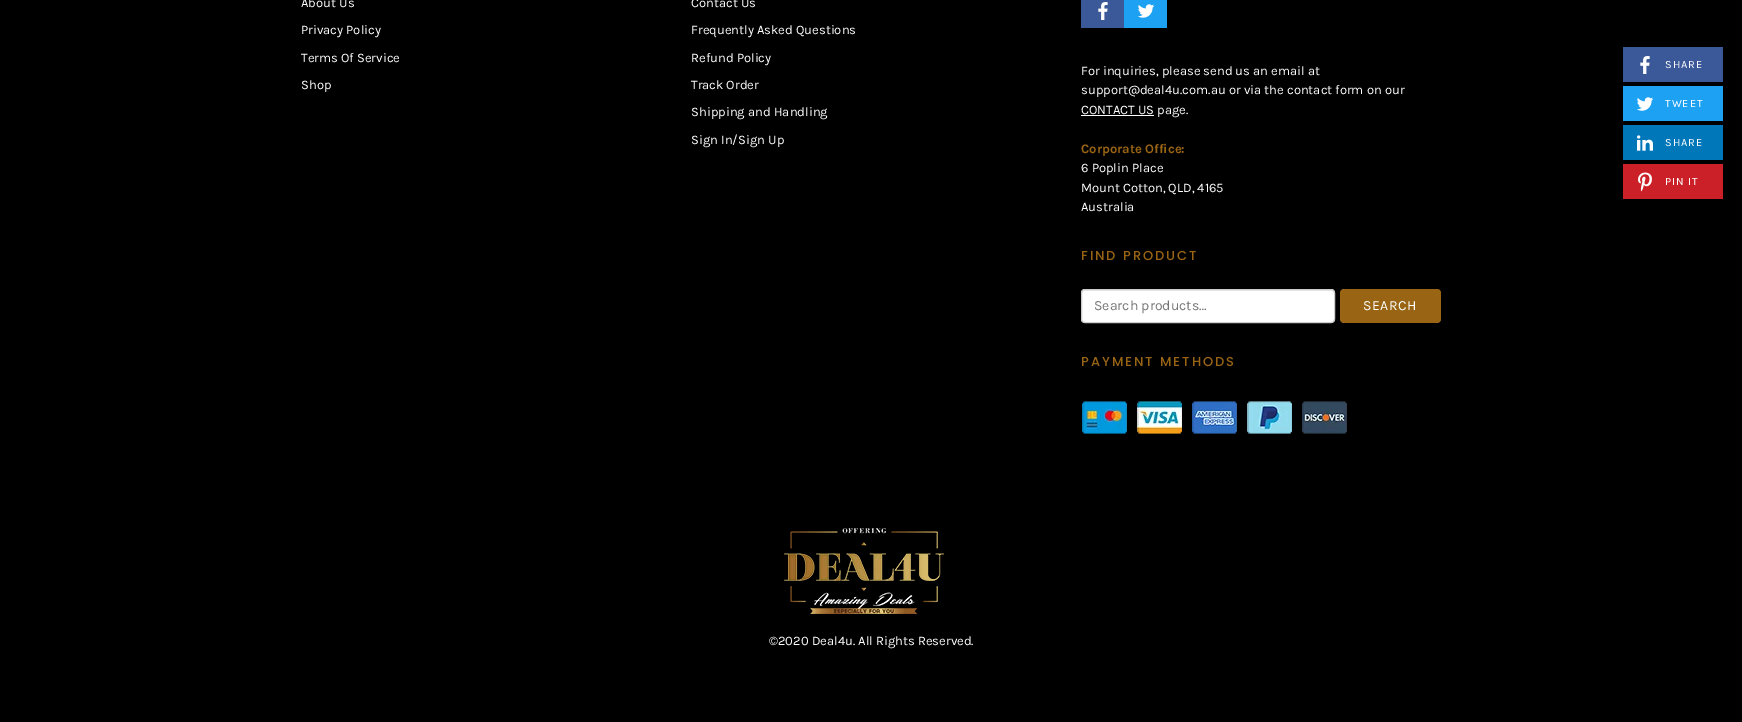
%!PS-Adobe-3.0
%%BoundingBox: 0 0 1742 722
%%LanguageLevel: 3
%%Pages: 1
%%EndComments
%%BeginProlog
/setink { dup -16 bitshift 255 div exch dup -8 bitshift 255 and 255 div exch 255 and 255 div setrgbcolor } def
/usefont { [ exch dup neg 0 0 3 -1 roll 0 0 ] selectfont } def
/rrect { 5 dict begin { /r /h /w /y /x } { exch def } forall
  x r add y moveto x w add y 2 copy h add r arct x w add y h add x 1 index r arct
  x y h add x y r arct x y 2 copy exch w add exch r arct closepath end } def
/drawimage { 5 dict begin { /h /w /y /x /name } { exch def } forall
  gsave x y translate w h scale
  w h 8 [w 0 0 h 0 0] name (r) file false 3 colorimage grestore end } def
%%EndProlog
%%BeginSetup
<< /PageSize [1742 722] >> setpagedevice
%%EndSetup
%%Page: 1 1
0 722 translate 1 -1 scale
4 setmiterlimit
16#000000 setink
0 0 1742 722 rectfill
/Karla-Regular 13 usefont
16#FFFFFF setink
[
    [(About Us) 301 7]
    [(Privacy Policy) 301 34]
    [(Terms Of Service) 301 62]
    [(Shop) 301 89]
    [(Contact Us) 691 7]
    [(Frequently Asked Questions) 691 34]
    [(Refund Policy) 691 62]
    [(Track Order) 691 89]
    [(Shipping and Handling) 691 116]
    [(Sign In/Sign Up) 691 144]
] { aload pop moveto show } forall
16#3B5998 setink
1081 0 43 28 rectfill
(img1.raw) 1098 2 10 18 drawimage
16#1DA1F3 setink
1124 0 43 28 rectfill
(img2.raw) 1138 4 16 14 drawimage
16#FFFFFF setink
1081 75 moveto (For inquiries, please send us an email at) show
1081 94 moveto (support@deal4u.com.au or via the contact form on our) show
1081 115 73 1 rectfill
1081 114 moveto (CONTACT US page.) show
/Karla-Bold 13 usefont
16#996515 setink
1081 153 moveto (Corporate Office:) show
/Karla-Regular 13 usefont
16#FFFFFF setink
[
    [(6 Poplin Place) 1081 172]
    [(Mount Cotton, QLD, 4165) 1081 192]
    [(Australia) 1081 211]
] { aload pop moveto show } forall
/Poppins-Medium 13 usefont
16#996515 setink
1081 260 moveto 2 0 (FIND PRODUCT) ashow
16#FFFFFF setink
1081 289 254 34 4 rrect fill
16#ECECEC setink
1085 291 moveto 1332 291 lineto 1334 292 lineto 1334 294 lineto 1334 292 1333 290 1331 290 curveto 1085 290 lineto 1083 290 1082 292 1082 294 curveto 1082 292 1083 291 1085 291 curveto closepath fill
16#CCCCCC setink
1081.5 289.5 253 33 3.5 rrect stroke
/Karla-Regular 14 usefont
16#757575 setink
1094 310 moveto (Search products…) show
16#996515 setink
1340 289 101 34 4 rrect fill
16#FFFFFF setink
1363 310 moveto 0.5 0 (SEARCH) ashow
/Poppins-Medium 13 usefont
16#996515 setink
1081 366 moveto 2 0 (PAYMENT METHODS) ashow
(img3.raw) 1082 401 265 33 drawimage
(img4.raw) 784 528 160 86 drawimage
/Karla-Regular 13 usefont
16#FFFFFF setink
769 645 moveto (©2020 Deal4u. All Rights Reserved.) show
16#3B5998 setink
1623 47 100 35 rectfill
(img1.raw) 1640 56 10 18 drawimage
/Karla-Regular 11 usefont
16#FFFFFF setink
1665 68 moveto 1 0 (SHARE) ashow
16#1DA1F3 setink
1623 86 100 35 rectfill
(img2.raw) 1637 97 16 14 drawimage
16#FFFFFF setink
1665 107 moveto 1 0 (TWEET) ashow
16#0077B9 setink
1623 125 100 35 rectfill
(img5.raw) 1637 135 16 16 drawimage
16#FFFFFF setink
1665 146 moveto 1 0 (SHARE) ashow
16#CB2027 setink
1623 164 100 35 rectfill
(img6.raw) 1638 172 14 20 drawimage
16#FFFFFF setink
1665 185 moveto 1 0 (PIN IT) ashow
showpage
%%EOF
